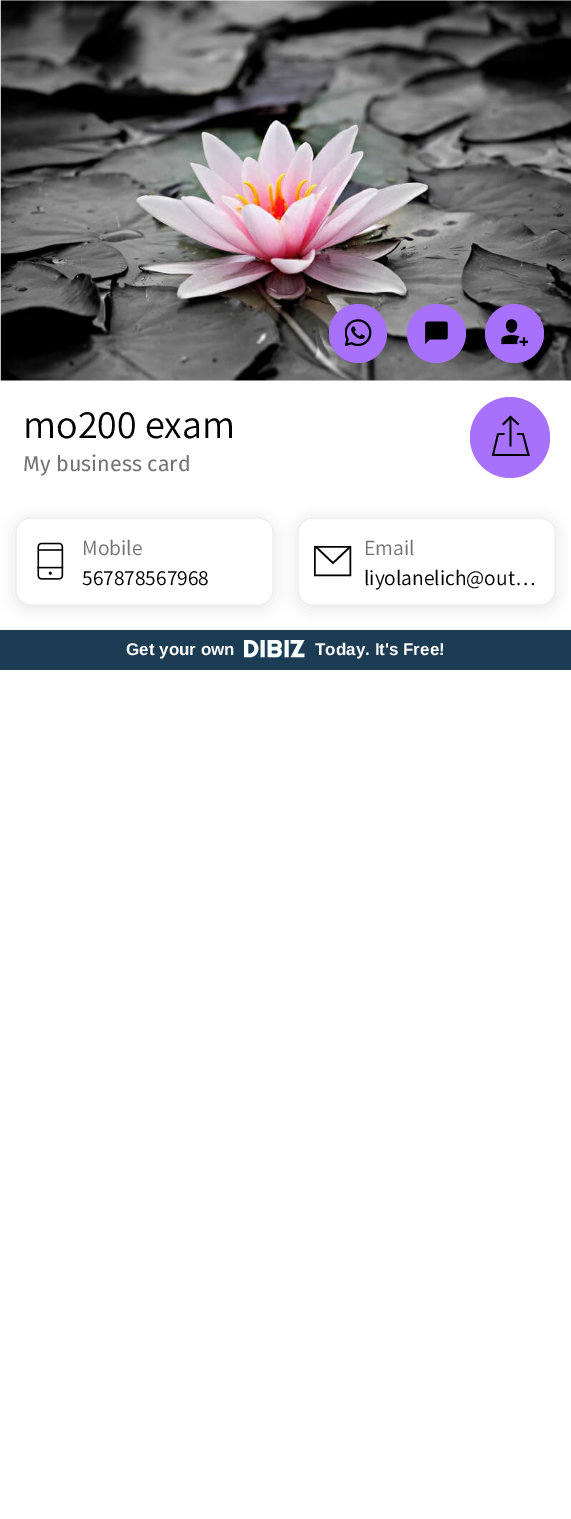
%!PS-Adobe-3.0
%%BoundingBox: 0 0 571 1519
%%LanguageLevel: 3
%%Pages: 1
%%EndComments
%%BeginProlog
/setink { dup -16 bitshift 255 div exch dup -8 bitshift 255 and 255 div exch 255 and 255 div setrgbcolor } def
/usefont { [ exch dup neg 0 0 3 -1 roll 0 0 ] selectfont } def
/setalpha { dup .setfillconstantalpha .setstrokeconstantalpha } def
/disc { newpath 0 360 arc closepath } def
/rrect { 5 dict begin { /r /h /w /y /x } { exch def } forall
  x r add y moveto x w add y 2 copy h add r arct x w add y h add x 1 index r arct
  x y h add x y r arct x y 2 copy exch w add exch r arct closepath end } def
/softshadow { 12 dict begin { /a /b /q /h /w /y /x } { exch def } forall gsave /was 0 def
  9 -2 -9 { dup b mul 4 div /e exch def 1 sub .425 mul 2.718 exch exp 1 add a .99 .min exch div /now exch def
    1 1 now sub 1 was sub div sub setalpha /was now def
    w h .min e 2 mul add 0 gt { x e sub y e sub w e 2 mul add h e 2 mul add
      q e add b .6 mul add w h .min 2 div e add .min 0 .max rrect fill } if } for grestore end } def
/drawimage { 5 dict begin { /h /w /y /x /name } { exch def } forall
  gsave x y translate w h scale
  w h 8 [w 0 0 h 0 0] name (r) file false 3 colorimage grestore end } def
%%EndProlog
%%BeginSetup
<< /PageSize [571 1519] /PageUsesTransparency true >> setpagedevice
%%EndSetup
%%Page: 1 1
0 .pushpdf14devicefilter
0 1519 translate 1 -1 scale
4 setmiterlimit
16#FFFFFF setink
0 0 571 1519 rectfill
(img1.raw) 0 0 571 381 drawimage
16#A771FC setink
329 304 58 59 29 rrect fill
(img2.raw) 345 319 27 27 drawimage
436.5 333.5 29.5 disc fill
(img3.raw) 425 321 23 23 drawimage
514.5 333.5 29.5 disc fill
(img4.raw) 501 319 27 27 drawimage
/Assistant-Regular 40 usefont
16#000000 setink
23 438 moveto (mo200 exam) show
16#A771FC setink
470 397 80 81 40 rrect fill
16#000000 setink
1.8 setlinewidth
510.5 446.5 moveto 510.5 417 lineto stroke
2 setlinecap
503.5 424 moveto 510.5 417 lineto 518 424 lineto 503.5 434 moveto 498 434 lineto 493 455 lineto 528.5 455 lineto 523 434 lineto 518 434 lineto stroke
/FiraSans-Regular 21.5 usefont
16#737373 setink
23 471 moveto (My business card) show
16#1C3C54 setink
0 630 571 40 rectfill
gsave
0 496 moveto 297 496 lineto 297 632 lineto 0 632 lineto closepath 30 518 moveto 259 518 lineto 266.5 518 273 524.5 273 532 curveto 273 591 lineto 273 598.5 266.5 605 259 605 curveto 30 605 lineto 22.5 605 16 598.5 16 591 curveto 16 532 lineto 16 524.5 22.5 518 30 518 curveto closepath eoclip newpath
16#000000 setink
13 518 262 92 16 7 0.08 softshadow
grestore
16#EEEEEE setink
0.7 setlinewidth
0 setlinecap
16.35 518.35 256.3 86.3 13.65 rrect stroke
(img5.raw) 37 542 27 38 drawimage
/Assistant-Regular 21.5 usefont
16#737373 setink
82 555 moveto (Mobile) show
16#000000 setink
82 585 moveto (567878567968) show
gsave
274 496 moveto 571 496 lineto 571 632 lineto 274 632 lineto closepath 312 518 moveto 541 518 lineto 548.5 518 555 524.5 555 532 curveto 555 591 lineto 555 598.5 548.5 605 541 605 curveto 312 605 lineto 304.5 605 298 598.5 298 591 curveto 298 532 lineto 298 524.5 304.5 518 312 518 curveto closepath eoclip newpath
296 518 262 92 16 7 0.08 softshadow
grestore
16#EEEEEE setink
298.35 518.35 256.3 86.3 13.65 rrect stroke
16#000000 setink
1.6 setlinewidth
315.5 546.5 moveto 333 563 lineto 350.5 546.5 lineto stroke
1.5 setlinewidth
314.75 546.75 35.5 28.5 rectstroke
16#737373 setink
364 555 moveto (Email) show
16#000000 setink
364 585 moveto (liyolanelich@out…) show
/LiberationSans-Bold 17 usefont
16#FFFFFF setink
126 655 moveto (Get your own) show
(img6.raw) 244 640 61 18 drawimage
315 655 moveto (Today. It's Free!) show
.poppdf14devicefilter showpage
%%EOF
